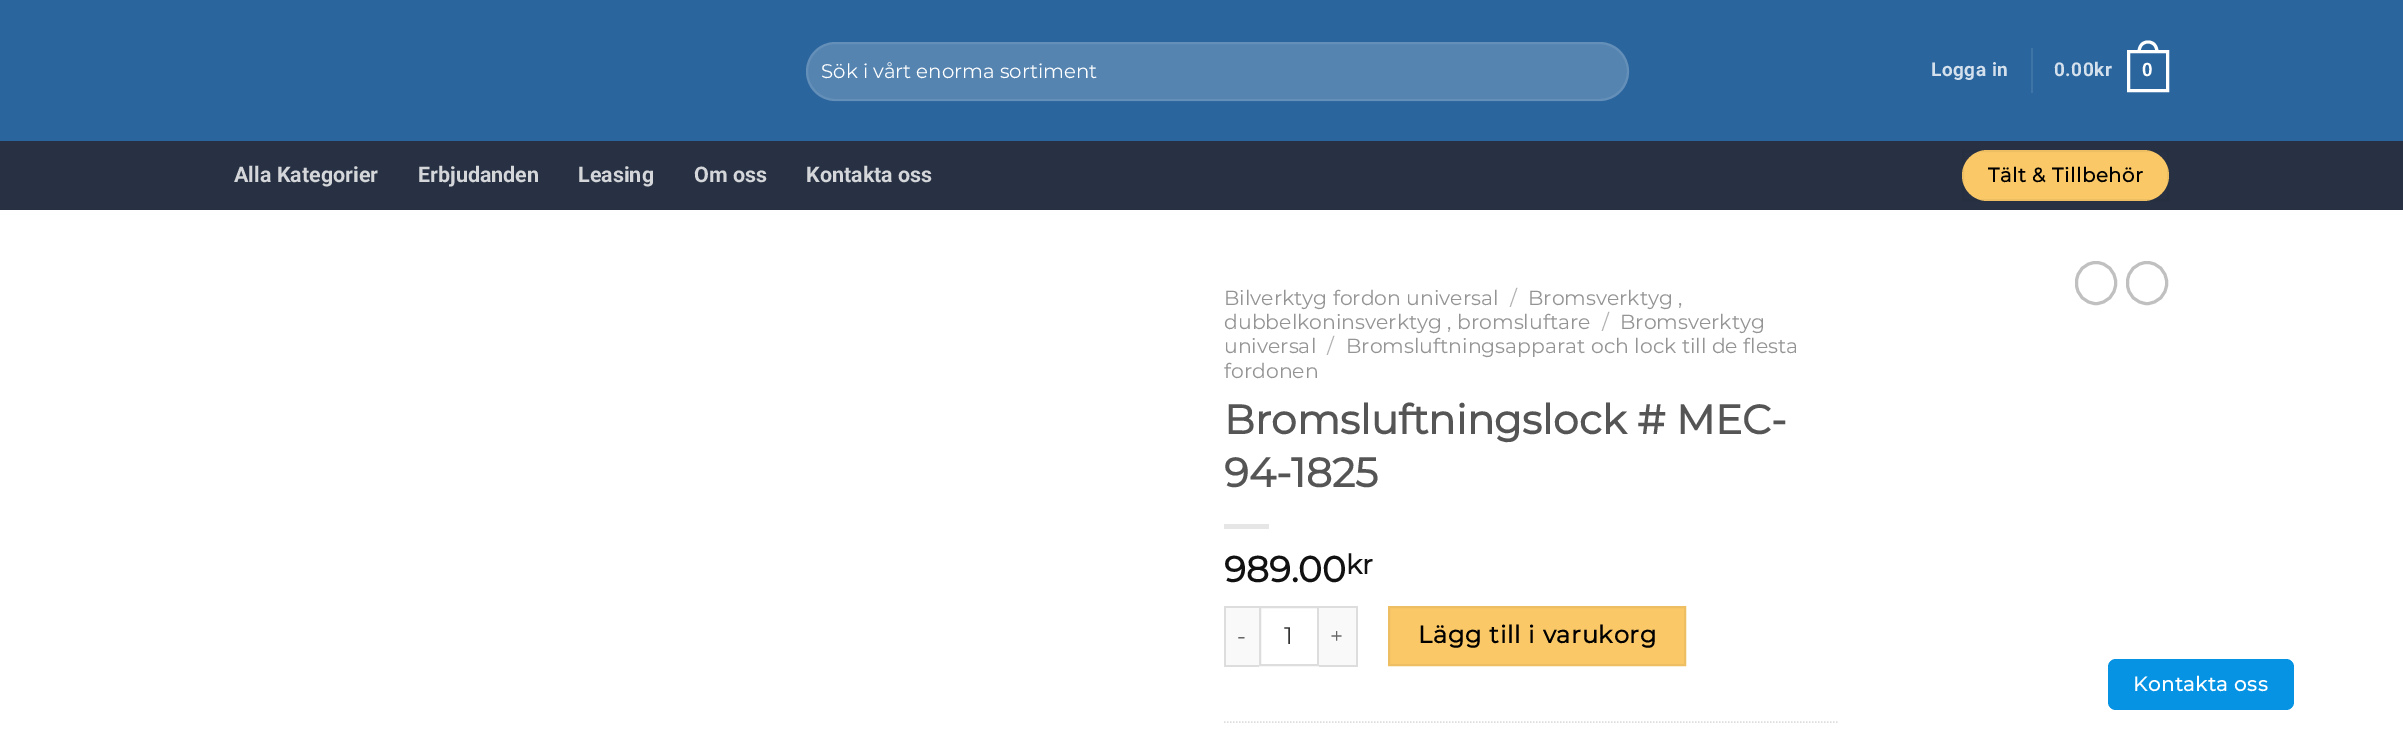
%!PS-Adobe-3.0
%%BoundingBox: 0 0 2403 742
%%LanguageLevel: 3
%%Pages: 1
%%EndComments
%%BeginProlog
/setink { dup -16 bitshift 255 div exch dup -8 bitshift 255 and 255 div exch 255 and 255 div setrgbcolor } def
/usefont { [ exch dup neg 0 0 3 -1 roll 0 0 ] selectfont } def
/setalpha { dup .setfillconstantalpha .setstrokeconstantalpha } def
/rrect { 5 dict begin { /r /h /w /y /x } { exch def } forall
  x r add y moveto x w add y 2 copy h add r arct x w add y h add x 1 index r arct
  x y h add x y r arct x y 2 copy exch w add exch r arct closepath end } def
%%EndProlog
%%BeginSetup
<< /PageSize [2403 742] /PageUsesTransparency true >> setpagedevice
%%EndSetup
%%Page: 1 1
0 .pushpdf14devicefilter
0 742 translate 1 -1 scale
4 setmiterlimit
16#FFFFFF setink
0 0 2403 742 rectfill
16#2A659D setink
0 0 2403 141 rectfill
16#5584B1 setink
806 42 823 59 29.5 rrect fill
0.09 setalpha
16#FFFFFF setink
2 setlinewidth
807 43 821 57 28.5 rrect stroke
/Montserrat-Thin 19.75 usefont
1 setalpha
821 78 moveto (Sök i vårt enorma sortiment) show
/Roboto-Bold 19 usefont
16#D4E0EB setink
1931 76 moveto 0.5 0 (Logga in) ashow
16#3F74A7 setink
2031 48 2 45 rectfill
16#D4E0EB setink
2054 76 moveto 0.5 0 (0.00kr) ashow
16#FFFFFF setink
3 setlinewidth
2128.5 51.5 39 39 rectstroke
2148 40.5 moveto 2155 40.5 2158.5 46 2158.5 52.5 curveto 2137.5 52.5 lineto 2137.5 46 2141 40.5 2148 40.5 curveto closepath 2148 43.5 moveto 2153.5 43.5 2155.5 48 2155.5 52.5 curveto 2140.5 52.5 lineto 2140.5 48 2142.5 43.5 2148 43.5 curveto closepath eofill
/LiberationSans-Bold 19 usefont
2142 76 moveto 0.5 0 (0) ashow
16#273143 setink
0 141 2403 69 rectfill
/Roboto-Bold 21.5 usefont
16#D4D6D9 setink
[
    [(Alla Kategorier) 234 182]
    [(Erbjudanden) 418 182]
    [(Leasing) 578 182]
    [(Om oss) 694 182]
    [(Kontakta oss) 806 182]
] { aload pop moveto show } forall
16#FBC867 setink
1962 150 207 51 25.5 rrect fill
0.05 setalpha
16#000000 setink
2 setlinewidth
1963 151 205 49 rectstroke
/Montserrat-Bold 19.75 usefont
1 setalpha
1988 182 moveto 0.6 0 (Tält & Tillbehör) ashow
16#0693E3 setink
2108 659 186 51 8 rrect fill
16#FFFFFF setink
2133 691 moveto 0.6 0 (Kontakta oss) ashow
/Montserrat-Thin 20.4 usefont
16#949494 setink
1224 305 moveto (Bilverktyg fordon universal) show
16#B2B2B2 setink
1510 305 moveto (/) show
16#949494 setink
1528 305 moveto (Bromsverktyg ,) show
1224 329 moveto (dubbelkoninsverktyg , bromsluftare) show
16#B2B2B2 setink
1602 329 moveto (/) show
16#949494 setink
1620 329 moveto (Bromsverktyg) show
1224 353 moveto (universal) show
16#B2B2B2 setink
1327 353 moveto (/) show
16#949494 setink
1346 353 moveto (Bromsluftningsapparat och lock till de flesta) show
1224 378 moveto (fordonen) show
/Montserrat-Bold 40.75 usefont
16#555555 setink
1224 434 moveto (Bromsluftningslock # MEC-) show
1224 487 moveto (94-1825) show
16#E6E6E6 setink
1224 524 45 5 rectfill
/Montserrat-Bold 36 usefont
16#111111 setink
1224 582 moveto (989.00) show
/Montserrat-Bold 27 usefont
1346 574 moveto (kr) show
[
    [1226 608 33 57 16#F9F9F9]
    [1224 606 35 2 16#DDDDDD]
    [1224 665 35 2 16#DDDDDD]
    [1224 606 2 60 16#DDDDDD]
] { aload pop setink rectfill } forall
/Montserrat-Thin 23 usefont
16#666666 setink
1237 644 moveto 1 0 (-) ashow
16#DDDDDD setink
1260 607 58 58 rectstroke
/Montserrat-Thin 24 usefont
16#333333 setink
1284 644 moveto (1) show
[
    [1319 608 37 57 16#F9F9F9]
    [1319 606 39 2 16#DDDDDD]
    [1356 606 2 60 16#DDDDDD]
    [1319 665 39 2 16#DDDDDD]
] { aload pop setink rectfill } forall
/Montserrat-Thin 23 usefont
16#666666 setink
1330 644 moveto 1 0 (+) ashow
16#FBC867 setink
1389 607 moveto 1685 607 lineto 1685 665 lineto 1389 665 lineto closepath gsave fill grestore
16#EEBE62 setink
stroke
/Montserrat-Bold 24 usefont
16#000000 setink
1418 643 moveto 0.75 0 (Lägg till i varukorg) ashow
16#DDDDDD setink
1.5 setlinewidth
[1.5 1.5] 0 setdash
1224 722 moveto 1839 722 lineto stroke
16#C0C0C0 setink
3 setlinewidth
[] 0 setdash
2076.5 262.5 39 41 19.5 rrect stroke
2127.5 262.5 39 41 19.5 rrect stroke
.poppdf14devicefilter showpage
%%EOF
